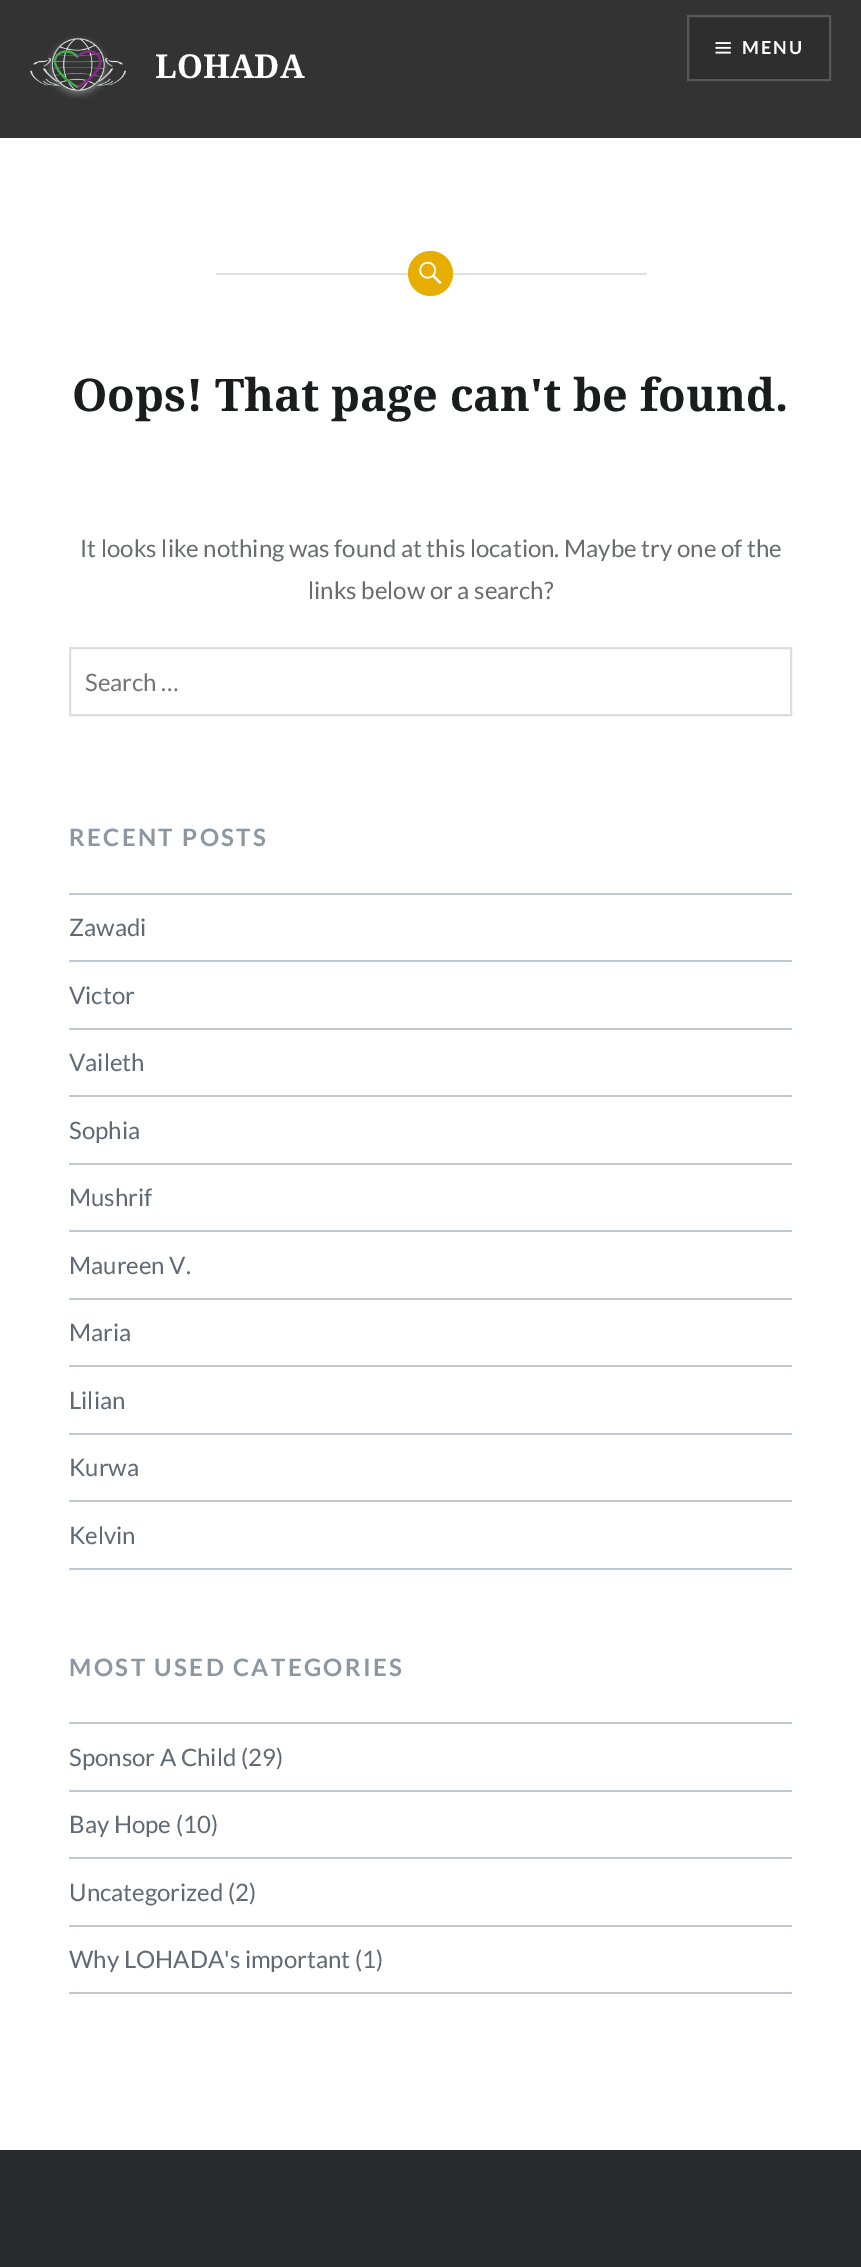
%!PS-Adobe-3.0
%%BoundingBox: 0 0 861 2267
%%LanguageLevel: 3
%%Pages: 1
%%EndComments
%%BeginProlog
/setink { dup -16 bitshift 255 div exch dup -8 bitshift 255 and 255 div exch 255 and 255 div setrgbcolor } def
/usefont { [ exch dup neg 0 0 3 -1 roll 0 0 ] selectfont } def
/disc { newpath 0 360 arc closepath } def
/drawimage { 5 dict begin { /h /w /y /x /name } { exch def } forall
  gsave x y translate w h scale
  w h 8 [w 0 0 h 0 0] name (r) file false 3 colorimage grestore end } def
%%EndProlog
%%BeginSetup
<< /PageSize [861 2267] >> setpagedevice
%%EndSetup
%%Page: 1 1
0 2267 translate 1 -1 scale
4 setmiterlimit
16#FFFFFF setink
0 0 861 2267 rectfill
16#333333 setink
0 0 861 138 rectfill
16#2E2E2E setink
688 16 moveto 830 16 lineto 830 80 lineto 688 80 lineto closepath gsave fill grestore
16#585858 setink
2 setlinewidth
stroke
(img1.raw) 715 42 16 12 drawimage
/Lato-Bold 18 usefont
16#FFFFFF setink
742 54 moveto 2 0 (MENU) ashow
(img2.raw) 30 36 96 63 drawimage
/NotoSerif-Bold 33 usefont
155 78 moveto (LOHADA) show
16#E0E0E0 setink
216 273 431 2 rectfill
16#E7AE01 setink
430.5 273.5 22.5 disc fill
(img3.raw) 419 261 23 24 drawimage
/NotoSerif-Bold 45 usefont
16#1A1C1E setink
72 411 moveto (Oops! That page can't be found.) show
/Lato-Regular 24 usefont
16#6A6C6E setink
80 557 moveto (It looks like nothing was found at this location. Maybe try one of the) show
308 599 moveto (links below or a search?) show
16#DDDDDD setink
70 648 721 67 rectstroke
16#757575 setink
85 691 moveto (Search …) show
/Lato-Bold 24 usefont
16#8C97A2 setink
69 846 moveto 2.4 0 (RECENT POSTS) ashow
16#C0C9D3 setink
69 893 723 2 rectfill
69 960 723 2 rectfill
/Lato-Regular 24 usefont
16#616A74 setink
69 936 moveto (Zawadi) show
16#C0C9D3 setink
69 1028 723 2 rectfill
16#616A74 setink
69 1004 moveto (Victor) show
16#C0C9D3 setink
69 1095 723 2 rectfill
16#616A74 setink
69 1071 moveto (Vaileth) show
16#C0C9D3 setink
69 1163 723 2 rectfill
16#616A74 setink
69 1139 moveto (Sophia) show
16#C0C9D3 setink
69 1230 723 2 rectfill
16#616A74 setink
69 1206 moveto (Mushrif) show
16#C0C9D3 setink
69 1298 723 2 rectfill
16#616A74 setink
69 1274 moveto (Maureen V.) show
16#C0C9D3 setink
69 1365 723 2 rectfill
16#616A74 setink
69 1341 moveto (Maria) show
16#C0C9D3 setink
69 1433 723 2 rectfill
16#616A74 setink
69 1409 moveto (Lilian) show
16#C0C9D3 setink
69 1500 723 2 rectfill
16#616A74 setink
69 1476 moveto (Kurwa) show
16#C0C9D3 setink
69 1568 723 2 rectfill
16#616A74 setink
69 1544 moveto (Kelvin) show
/Lato-Bold 24 usefont
16#8C97A2 setink
69 1676 moveto 2.4 0 (MOST USED CATEGORIES) ashow
16#C0C9D3 setink
69 1722 723 2 rectfill
69 1790 723 2 rectfill
/Lato-Regular 24 usefont
16#616A74 setink
69 1766 moveto (Sponsor A Child \(29\)) show
16#C0C9D3 setink
69 1857 723 2 rectfill
16#616A74 setink
69 1833 moveto (Bay Hope \(10\)) show
16#C0C9D3 setink
69 1925 723 2 rectfill
16#616A74 setink
69 1901 moveto (Uncategorized \(2\)) show
16#C0C9D3 setink
69 1992 723 2 rectfill
16#616A74 setink
69 1968 moveto (Why LOHADA's important \(1\)) show
16#292C2F setink
0 2150 861 117 rectfill
showpage
%%EOF
